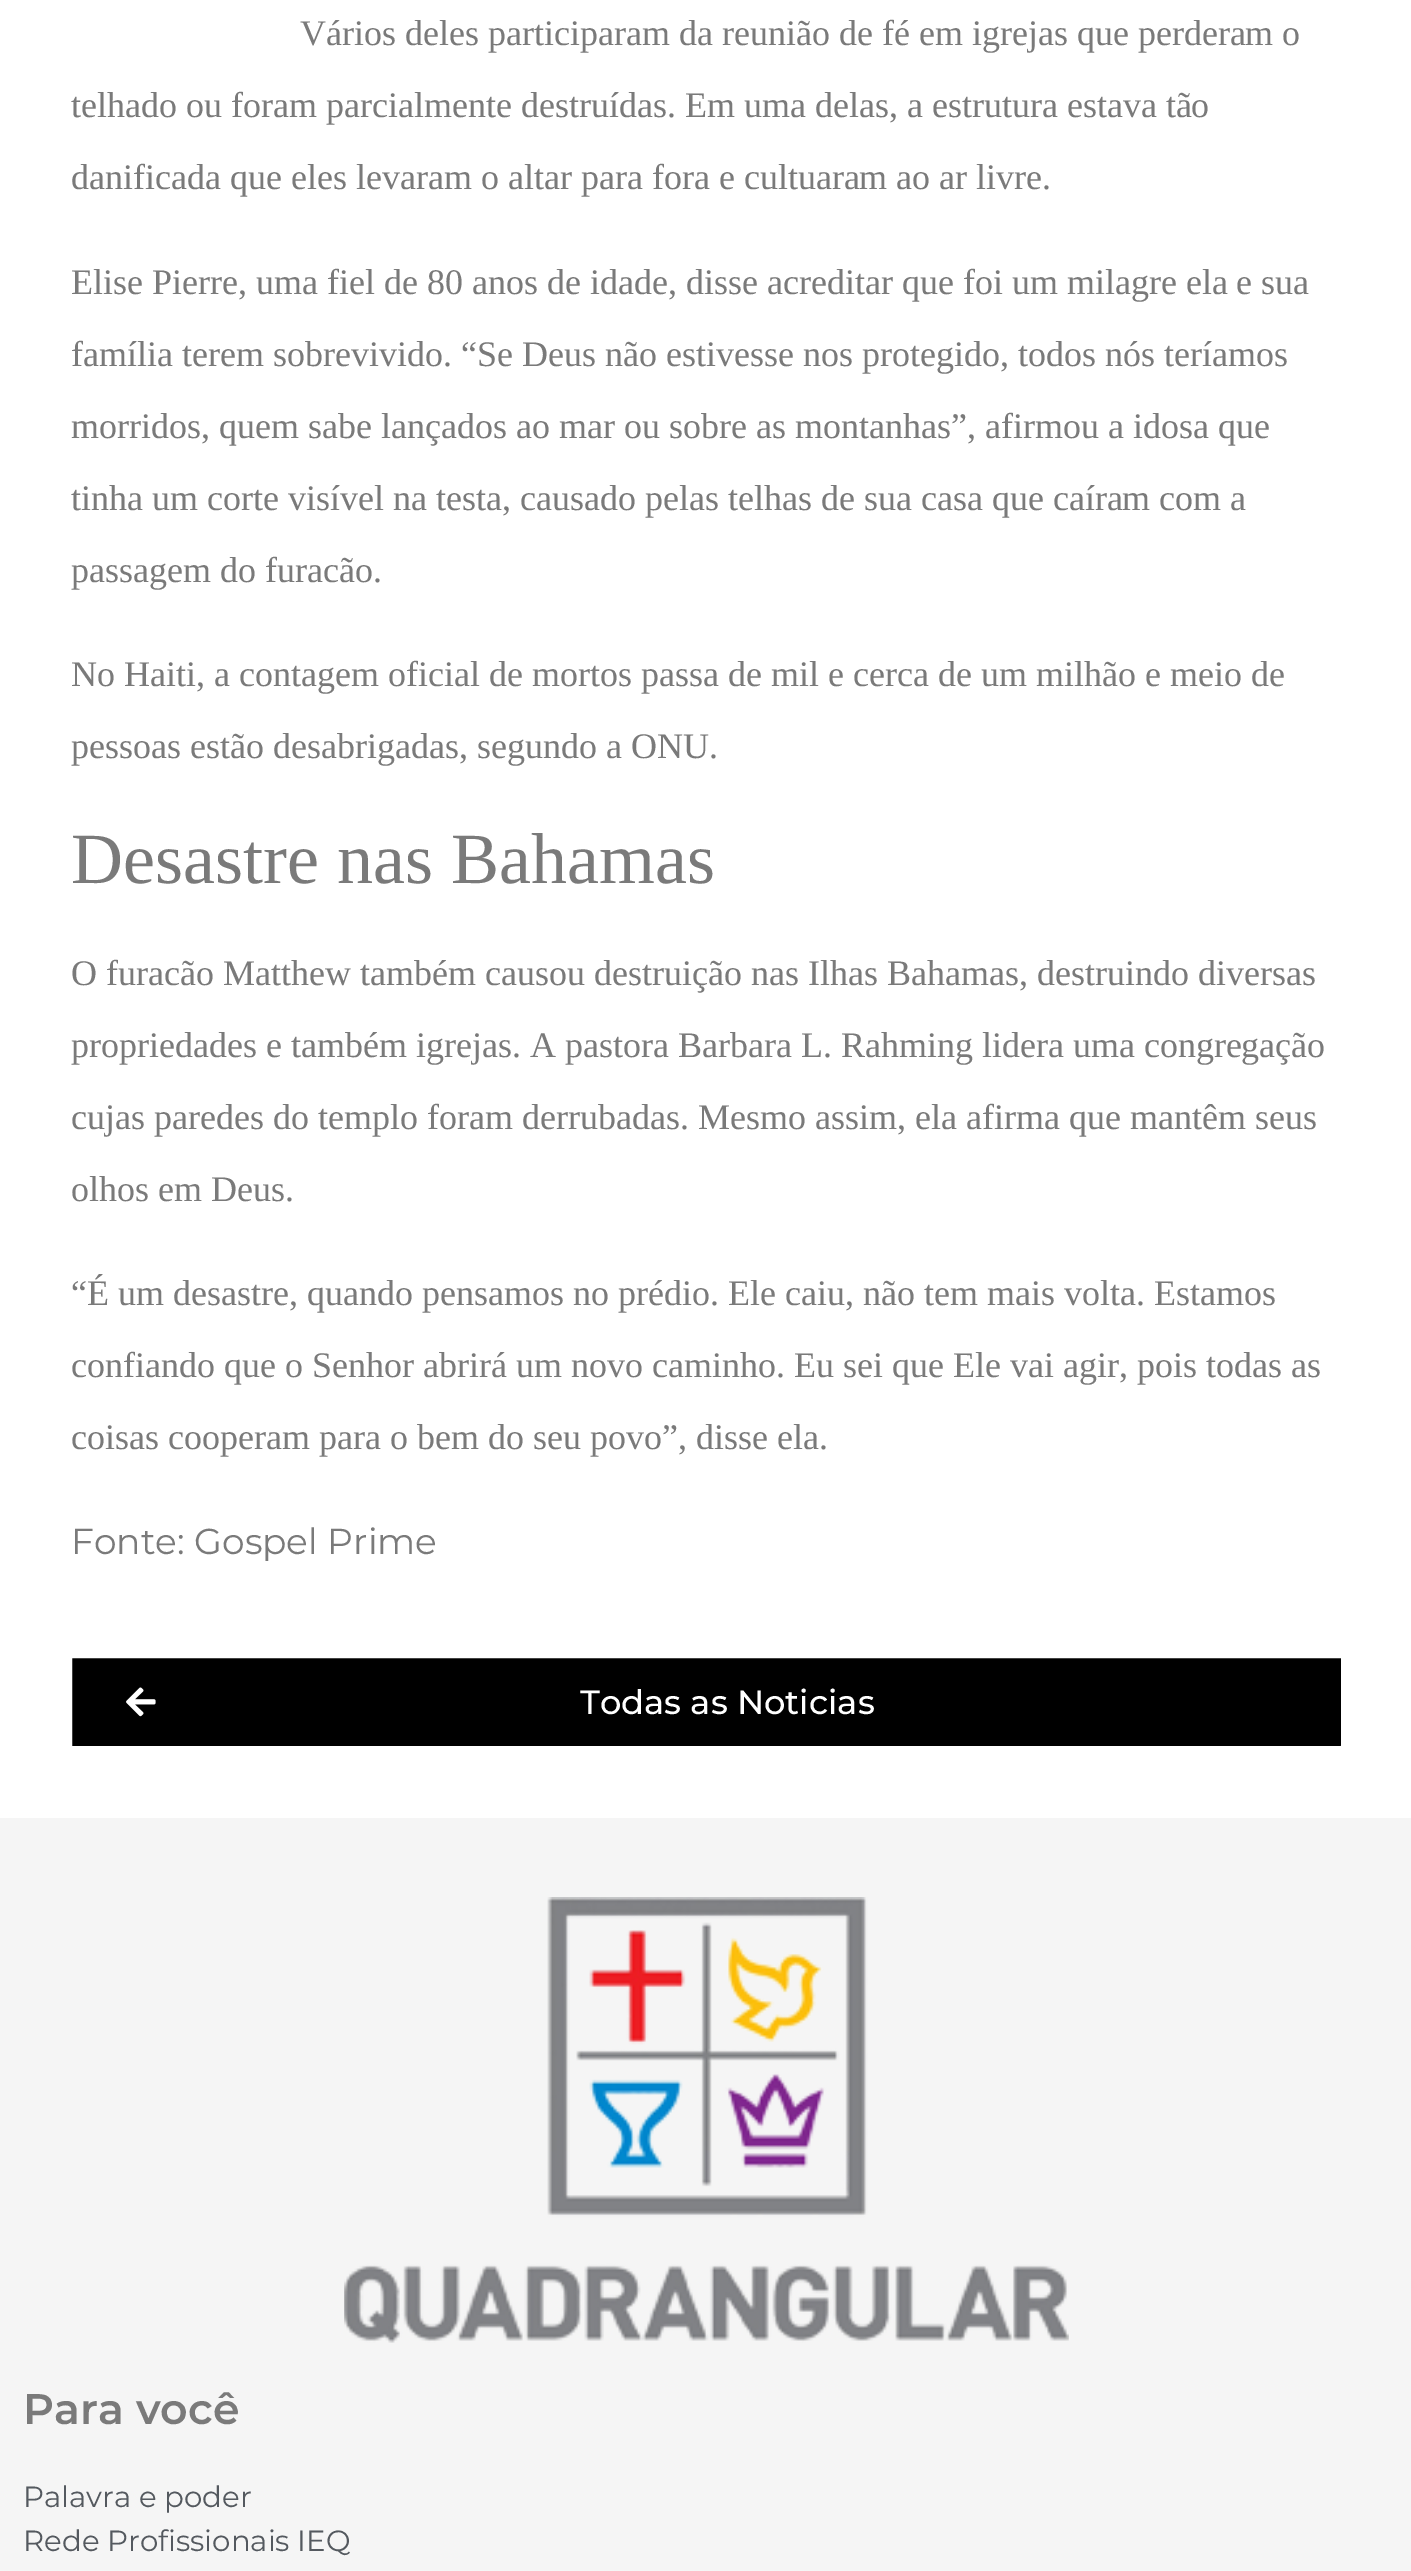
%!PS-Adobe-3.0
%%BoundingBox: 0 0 1411 2571
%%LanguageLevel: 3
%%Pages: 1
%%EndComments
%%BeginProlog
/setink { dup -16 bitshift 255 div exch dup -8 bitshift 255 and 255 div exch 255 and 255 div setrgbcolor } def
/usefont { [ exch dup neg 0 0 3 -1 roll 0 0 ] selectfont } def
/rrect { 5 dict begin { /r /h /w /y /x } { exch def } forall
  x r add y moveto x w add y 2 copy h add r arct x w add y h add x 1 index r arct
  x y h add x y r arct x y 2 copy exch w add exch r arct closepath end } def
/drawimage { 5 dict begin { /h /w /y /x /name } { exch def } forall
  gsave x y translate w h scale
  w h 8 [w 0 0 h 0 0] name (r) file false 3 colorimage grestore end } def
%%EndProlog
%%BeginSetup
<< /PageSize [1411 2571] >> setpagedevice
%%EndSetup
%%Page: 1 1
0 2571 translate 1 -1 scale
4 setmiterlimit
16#FFFFFF setink
0 0 1411 2571 rectfill
/LiberationSerif-Regular 36 usefont
16#7A7A7A setink
[
    [(Vários deles participaram da reunião de fé em igrejas que perderam o) 300 45]
    [(telhado ou foram parcialmente destruídas. Em uma delas, a estrutura estava tão) 71 117]
    [(danificada que eles levaram o altar para fora e cultuaram ao ar livre.) 71 189]
    [(Elise Pierre, uma fiel de 80 anos de idade, disse acreditar que foi um milagre ela e sua) 71 294]
    [(família terem sobrevivido. “Se Deus não estivesse nos protegido, todos nós teríamos) 71 366]
    [(morridos, quem sabe lançados ao mar ou sobre as montanhas”, afirmou a idosa que) 71 438]
    [(tinha um corte visível na testa, causado pelas telhas de sua casa que caíram com a) 71 510]
    [(passagem do furacão.) 71 582]
    [(No Haiti, a contagem oficial de mortos passa de mil e cerca de um milhão e meio de) 71 686]
    [(pessoas estão desabrigadas, segundo a ONU.) 71 758]
] { aload pop moveto show } forall
/LiberationSerif-Regular 72 usefont
71 883 moveto (Desastre nas Bahamas) show
/LiberationSerif-Regular 36 usefont
[
    [(O furacão Matthew também causou destruição nas Ilhas Bahamas, destruindo diversas) 71 985]
    [(propriedades e também igrejas. A pastora Barbara L. Rahming lidera uma congregação) 71 1057]
    [(cujas paredes do templo foram derrubadas. Mesmo assim, ela afirma que mantêm seus) 71 1129]
    [(olhos em Deus.) 71 1201]
    [(“É um desastre, quando pensamos no prédio. Ele caiu, não tem mais volta. Estamos) 71 1305]
    [(confiando que o Senhor abrirá um novo caminho. Eu sei que Ele vai agir, pois todas as) 71 1377]
    [(coisas cooperam para o bem do seu povo”, disse ela.) 71 1449]
] { aload pop moveto show } forall
/Montserrat-Regular 36 usefont
71 1554 moveto (Fonte: Gospel Prime) show
16#000000 setink
71 1657 1271 90 1 rrect gsave fill grestore
16#FFFFFF setink
2 setlinewidth
stroke
(img1.raw) 126 1687 30 30 drawimage
/Montserrat-Medium 33.75 usefont
580 1714 moveto (Todas as Noticias) show
16#F5F5F5 setink
0 1818 1411 753 rectfill
(img2.raw) 344 1897 725 446 drawimage
/Montserrat-SemiBold 42.75 usefont
16#7A7A7A setink
23 2424 moveto (Para você) show
/Montserrat-Regular 29.25 usefont
16#54595F setink
23 2507 moveto (Palavra e poder) show
23 2551 moveto (Rede Profissionais IEQ) show
showpage
%%EOF
